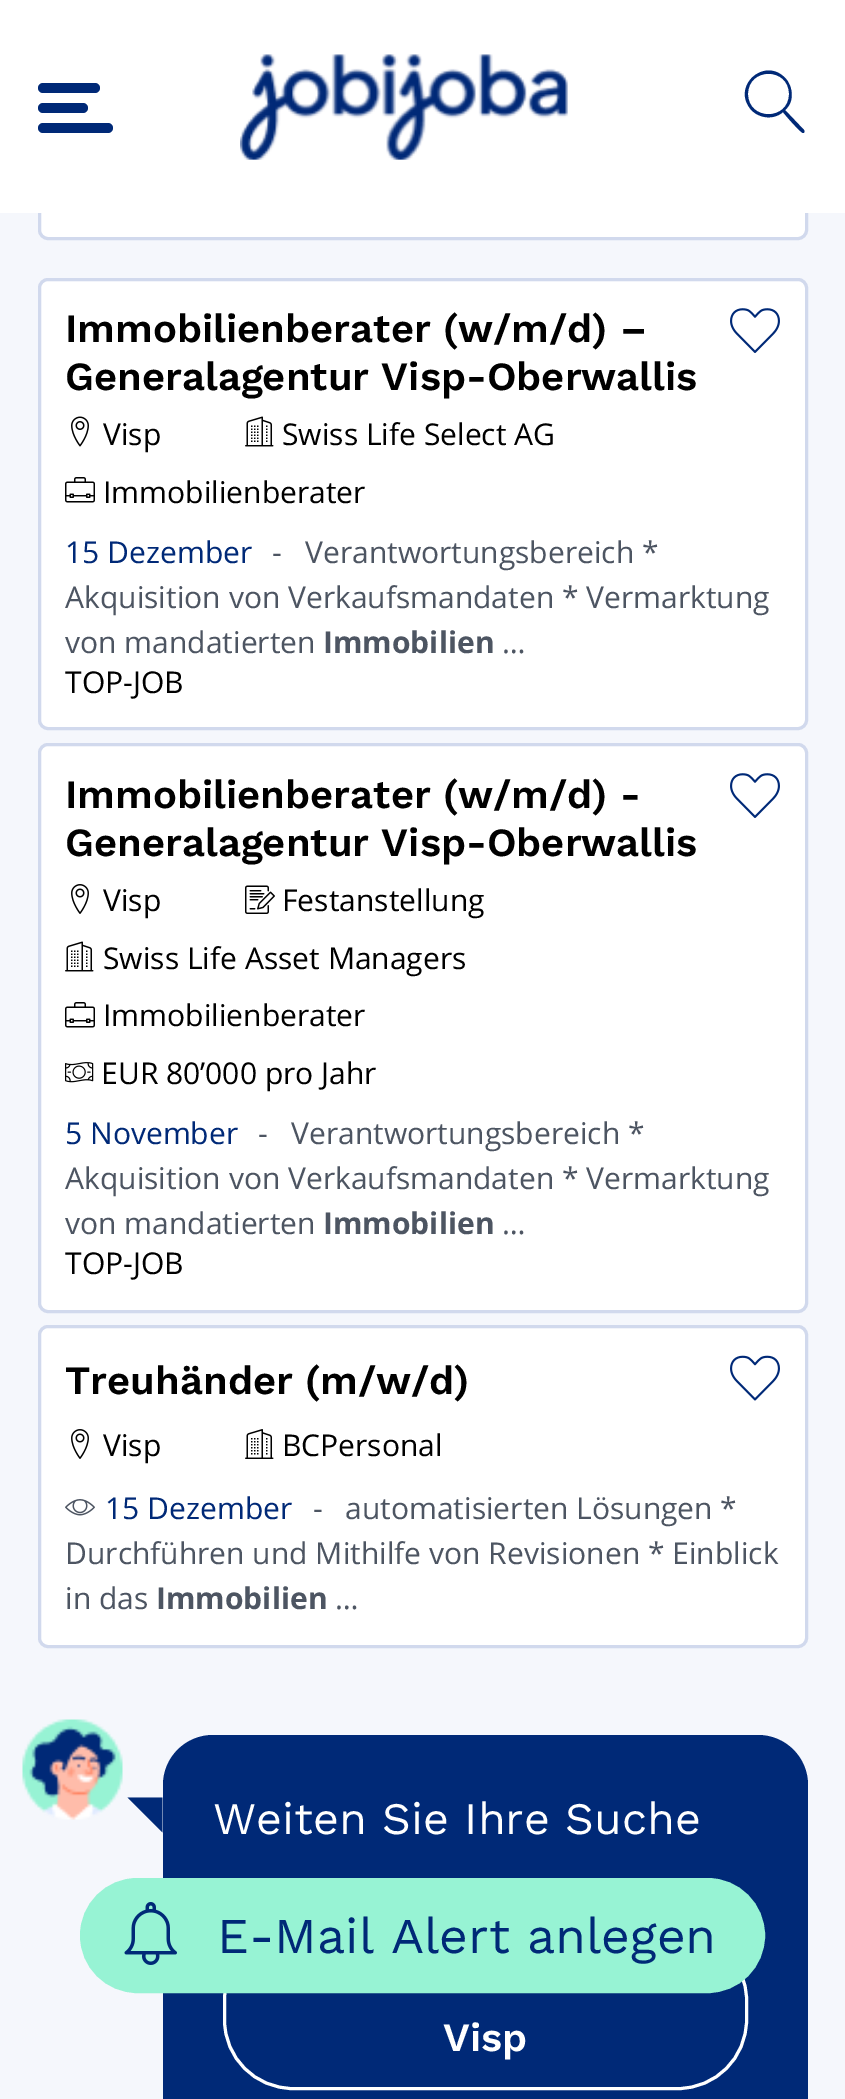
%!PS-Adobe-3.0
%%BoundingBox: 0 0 845 2099
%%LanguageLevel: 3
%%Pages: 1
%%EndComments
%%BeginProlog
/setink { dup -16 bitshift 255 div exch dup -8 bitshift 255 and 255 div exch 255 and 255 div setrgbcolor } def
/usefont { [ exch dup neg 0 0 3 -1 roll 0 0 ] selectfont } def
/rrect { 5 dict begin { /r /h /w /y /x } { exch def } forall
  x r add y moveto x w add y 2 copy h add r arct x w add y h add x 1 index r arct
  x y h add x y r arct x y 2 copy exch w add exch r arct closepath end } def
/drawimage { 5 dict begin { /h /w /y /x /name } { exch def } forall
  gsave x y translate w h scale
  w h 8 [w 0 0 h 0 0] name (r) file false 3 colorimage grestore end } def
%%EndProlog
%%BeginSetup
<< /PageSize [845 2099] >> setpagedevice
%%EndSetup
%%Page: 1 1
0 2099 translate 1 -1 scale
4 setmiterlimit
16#F5F7FC setink
0 0 845 2099 rectfill
16#FFFFFF setink
39.5 144.5 767 94 8.5 rrect gsave fill grestore
16#D1D9ED setink
3 setlinewidth
stroke
16#FFFFFF setink
0 0 845 213 rectfill
16#002977 setink
38 83 62 10 5 rrect fill
38 103 50 10 5 rrect fill
38 123 75 10 5 rrect fill
(img1.raw) 240 54 328 106 drawimage
804 130 moveto 785 110 lineto 791 105 793 97 791 89 curveto 790 84 787 79 783 76 curveto 763 59 734 85 749 107 curveto 756 118 773 121 783 112 curveto 785 115 801 133 803 133 curveto 804 133 805 132 804 130 curveto closepath 748 94 moveto 748 67 789 67 789 94 curveto 789 121 748 121 748 94 curveto closepath fill
16#FFFFFF setink
39.5 279.5 767 449 8.5 rrect gsave fill grestore
16#D1D9ED setink
stroke
(img2.raw) 730 308 50 45 drawimage
/WorkSans-SemiBold 40 usefont
16#000000 setink
65 342 moveto (Immobilienberater \(w/m/d\) –) show
65 390 moveto (Generalagentur Visp-Oberwallis) show
(img3.raw) 71 416 18 31 drawimage
/OpenSans-Regular 30 usefont
103 445 moveto (Visp) show
(img4.raw) 245 416 29 31 drawimage
282 445 moveto (Swiss Life Select AG) show
(img5.raw) 65 477 30 26 drawimage
103 503 moveto (Immobilienberater) show
16#002977 setink
65 563 moveto (15 Dezember) show
16#4D5562 setink
[
    [(-) 272 563]
    [(Verantwortungsbereich *) 305 563]
    [(Akquisition von Verkaufsmandaten * Vermarktung) 65 608]
    [(von mandatierten) 65 653]
] { aload pop moveto show } forall
/OpenSans-Bold 30 usefont
323 653 moveto (Immobilien) show
/OpenSans-Regular 30 usefont
502 653 moveto (…) show
16#000000 setink
65 693 moveto (TOP-JOB) show
16#FFFFFF setink
39.5 744.5 767 567 8.5 rrect gsave fill grestore
16#D1D9ED setink
stroke
(img2.raw) 730 773 50 45 drawimage
/WorkSans-SemiBold 40 usefont
16#000000 setink
65 808 moveto (Immobilienberater \(w/m/d\) -) show
65 856 moveto (Generalagentur Visp-Oberwallis) show
(img6.raw) 71 884 18 30 drawimage
/OpenSans-Regular 30 usefont
103 911 moveto (Visp) show
(img7.raw) 245 885 30 29 drawimage
282 911 moveto (Festanstellung) show
(img4.raw) 65 941 29 31 drawimage
103 969 moveto (Swiss Life Asset Managers) show
(img5.raw) 65 1002 30 26 drawimage
103 1026 moveto (Immobilienberater) show
(img8.raw) 65 1062 29 21 drawimage
101 1084 moveto (EUR 80’000 pro Jahr) show
16#002977 setink
65 1144 moveto (5 November) show
16#4D5562 setink
[
    [(-) 258 1144]
    [(Verantwortungsbereich *) 291 1144]
    [(Akquisition von Verkaufsmandaten * Vermarktung) 65 1189]
    [(von mandatierten) 65 1234]
] { aload pop moveto show } forall
/OpenSans-Bold 30 usefont
323 1234 moveto (Immobilien) show
/OpenSans-Regular 30 usefont
502 1234 moveto (…) show
16#000000 setink
65 1274 moveto (TOP-JOB) show
16#FFFFFF setink
39.5 1326.5 767 320 8.5 rrect gsave fill grestore
16#D1D9ED setink
stroke
(img9.raw) 730 1355 50 46 drawimage
/WorkSans-SemiBold 40 usefont
16#000000 setink
65 1394 moveto (Treuhänder \(m/w/d\)) show
(img6.raw) 71 1429 18 30 drawimage
/OpenSans-Regular 30 usefont
103 1456 moveto (Visp) show
(img10.raw) 245 1429 29 30 drawimage
282 1456 moveto (BCPersonal) show
(img11.raw) 65 1499 30 17 drawimage
16#002977 setink
105 1519 moveto (15 Dezember) show
16#4D5562 setink
[
    [(-) 313 1519]
    [(automatisierten Lösungen *) 345 1519]
    [(Durchführen und Mithilfe von Revisionen * Einblick) 65 1564]
    [(in das) 65 1609]
] { aload pop moveto show } forall
/OpenSans-Bold 30 usefont
156 1609 moveto (Immobilien) show
/OpenSans-Regular 30 usefont
335 1609 moveto (…) show
16#002977 setink
163 1735 645 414 50 rrect fill
(img12.raw) 22 1719 101 101 drawimage
162.5 1797.5 moveto 162.5 1832.5 lineto 127.5 1797.5 lineto closepath fill
/WorkSans-Regular 45 usefont
16#FFFFFF setink
213 1834 moveto (Weiten Sie Ihre Suche) show
224.5 1931.5 522 157 68.5 rrect stroke
/WorkSans-SemiBold 40 usefont
443 2051 moveto (Visp) show
16#97F3D4 setink
81.5 1879.5 682 112 56 rrect gsave fill grestore
stroke
(img13.raw) 124 1902 53 63 drawimage
/WorkSans-Regular 50 usefont
16#002977 setink
217 1953 moveto (E-Mail Alert anlegen) show
showpage
%%EOF
